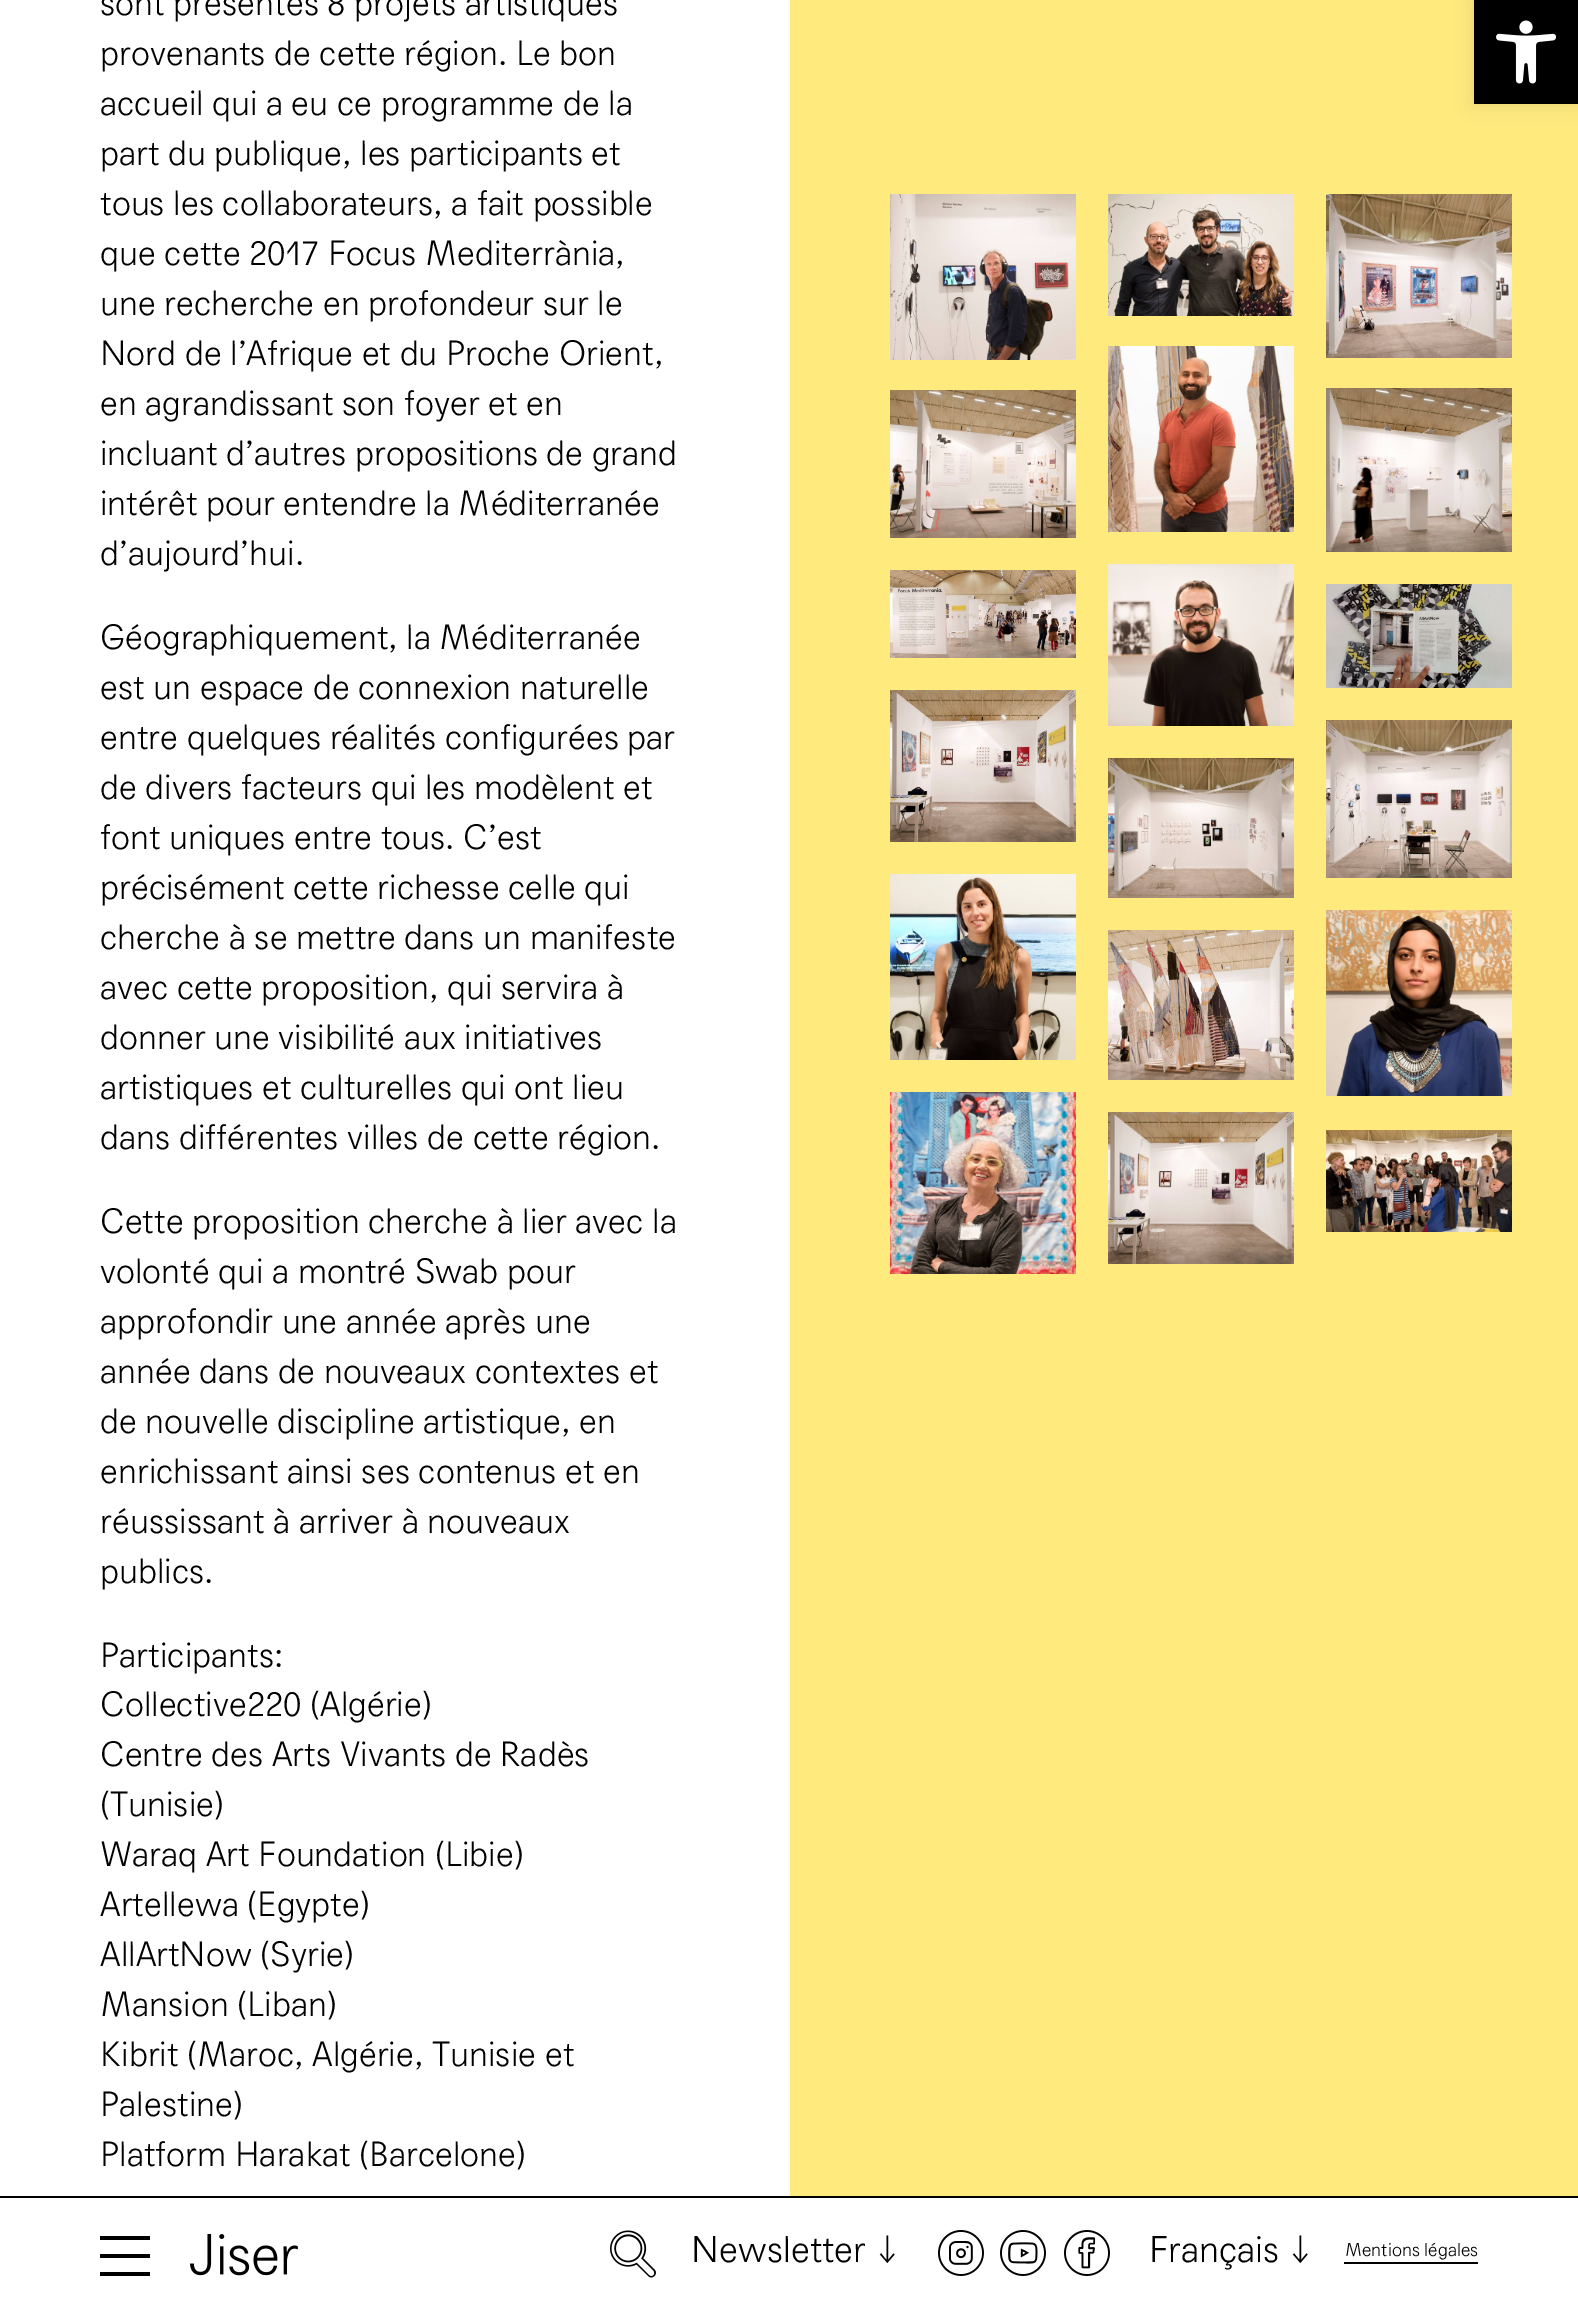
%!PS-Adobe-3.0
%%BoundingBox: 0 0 1578 2305
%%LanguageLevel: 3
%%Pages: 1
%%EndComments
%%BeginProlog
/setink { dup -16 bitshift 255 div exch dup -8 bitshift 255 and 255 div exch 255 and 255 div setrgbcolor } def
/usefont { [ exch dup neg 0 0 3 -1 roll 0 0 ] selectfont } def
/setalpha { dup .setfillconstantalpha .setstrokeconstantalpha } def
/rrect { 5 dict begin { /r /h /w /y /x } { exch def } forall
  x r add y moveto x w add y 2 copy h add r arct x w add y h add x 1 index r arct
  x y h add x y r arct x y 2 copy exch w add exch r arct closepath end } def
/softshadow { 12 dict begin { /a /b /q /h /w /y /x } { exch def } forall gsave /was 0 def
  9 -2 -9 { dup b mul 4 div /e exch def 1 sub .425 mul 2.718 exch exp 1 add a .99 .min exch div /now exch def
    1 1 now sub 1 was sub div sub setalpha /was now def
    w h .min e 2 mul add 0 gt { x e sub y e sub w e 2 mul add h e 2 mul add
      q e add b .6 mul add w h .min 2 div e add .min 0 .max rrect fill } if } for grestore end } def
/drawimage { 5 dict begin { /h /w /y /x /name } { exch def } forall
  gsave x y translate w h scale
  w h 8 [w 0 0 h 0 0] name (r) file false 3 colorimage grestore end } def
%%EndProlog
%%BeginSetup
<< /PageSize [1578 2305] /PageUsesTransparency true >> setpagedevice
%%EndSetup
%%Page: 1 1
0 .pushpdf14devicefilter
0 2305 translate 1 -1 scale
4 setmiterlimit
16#FFFFFF setink
0 0 1578 2305 rectfill
/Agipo-Light 34 usefont
16#000000 setink
[
    [(sont présentés 8 projets artistiques) 100 15]
    [(provenants de cette région. Le bon) 100 65]
    [(accueil qui a eu ce programme de la) 100 115]
    [(part du publique, les participants et) 100 165]
    [(tous les collaborateurs, a fait possible) 100 215]
    [(que cette 2017 Focus Mediterrània,) 100 265]
    [(une recherche en profondeur sur le) 100 315]
    [(Nord de l’Afrique et du Proche Orient,) 100 365]
    [(en agrandissant son foyer et en) 100 415]
    [(incluant d’autres propositions de grand) 100 465]
    [(intérêt pour entendre la Méditerranée) 100 515]
    [(d’aujourd’hui.) 100 565]
    [(Géographiquement, la Méditerranée) 100 649]
    [(est un espace de connexion naturelle) 100 699]
    [(entre quelques réalités configurées par) 100 749]
    [(de divers facteurs qui les modèlent et) 100 799]
    [(font uniques entre tous. C’est) 100 849]
    [(précisément cette richesse celle qui) 100 899]
    [(cherche à se mettre dans un manifeste) 100 949]
    [(avec cette proposition, qui servira à) 100 999]
    [(donner une visibilité aux initiatives) 100 1049]
    [(artistiques et culturelles qui ont lieu) 100 1099]
    [(dans différentes villes de cette région.) 100 1149]
    [(Cette proposition cherche à lier avec la) 100 1233]
    [(volonté qui a montré Swab pour) 100 1283]
    [(approfondir une année après une) 100 1333]
    [(année dans de nouveaux contextes et) 100 1383]
    [(de nouvelle discipline artistique, en) 100 1433]
    [(enrichissant ainsi ses contenus et en) 100 1483]
    [(réussissant à arriver à nouveaux) 100 1533]
    [(publics.) 100 1583]
    [(Participants:) 100 1667]
    [(Collective220 \(Algérie\)) 100 1716]
    [(Centre des Arts Vivants de Radès) 100 1766]
    [(\(Tunisie\)) 100 1816]
    [(Waraq Art Foundation \(Libie\)) 100 1866]
    [(Artellewa \(Egypte\)) 100 1916]
    [(AllArtNow \(Syrie\)) 100 1966]
    [(Mansion \(Liban\)) 100 2016]
    [(Kibrit \(Maroc, Algérie, Tunisie et) 100 2066]
    [(Palestine\)) 100 2116]
    [(Platform Harakat \(Barcelone\)) 100 2166]
] { aload pop moveto show } forall
16#FFEA7E setink
790 0 788 2196 rectfill
(img1.raw) 890 194 186 166 drawimage
(img2.raw) 1108 194 186 122 drawimage
(img3.raw) 1326 194 186 164 drawimage
(img4.raw) 890 390 186 148 drawimage
(img5.raw) 1108 346 186 186 drawimage
(img6.raw) 1326 388 186 164 drawimage
(img7.raw) 890 570 186 88 drawimage
(img8.raw) 1108 564 186 162 drawimage
(img9.raw) 1326 584 186 104 drawimage
(img10.raw) 890 690 186 152 drawimage
(img11.raw) 1108 758 186 140 drawimage
(img12.raw) 1326 720 186 158 drawimage
(img13.raw) 890 874 186 186 drawimage
(img14.raw) 1108 930 186 150 drawimage
(img15.raw) 1326 910 186 186 drawimage
(img16.raw) 890 1092 186 182 drawimage
(img17.raw) 1108 1112 186 152 drawimage
(img18.raw) 1326 1130 186 102 drawimage
16#000000 setink
1474 0 104 104 0 10 0.1 softshadow
1474 0 104 104 rectfill
(img19.raw) 1496 20 61 64 drawimage
[
    [0 2196 1578 2 16#000000]
    [100 2236 50 4 16#000000]
    [100 2254 50 4 16#000000]
    [100 2272 50 4 16#000000]
] { aload pop setink rectfill } forall
(img20.raw) 190 2234 108 42 drawimage
(img21.raw) 610 2230 46 48 drawimage
/Agipo-Light 36 usefont
691 2262 moveto (Newsletter) show
/Agipo-Light 31 usefont
878 2258 moveto (↓) show
(img22.raw) 938 2230 46 46 drawimage
(img23.raw) 1000 2230 46 46 drawimage
(img24.raw) 1064 2230 46 46 drawimage
/Agipo-Light 36 usefont
1149 2262 moveto (Français) show
/Agipo-Light 31 usefont
1291 2258 moveto (↓) show
/Agipo-Light 18 usefont
1345 2256 moveto (Mentions légales) show
1344 2262 134 2 rectfill
.poppdf14devicefilter showpage
%%EOF
